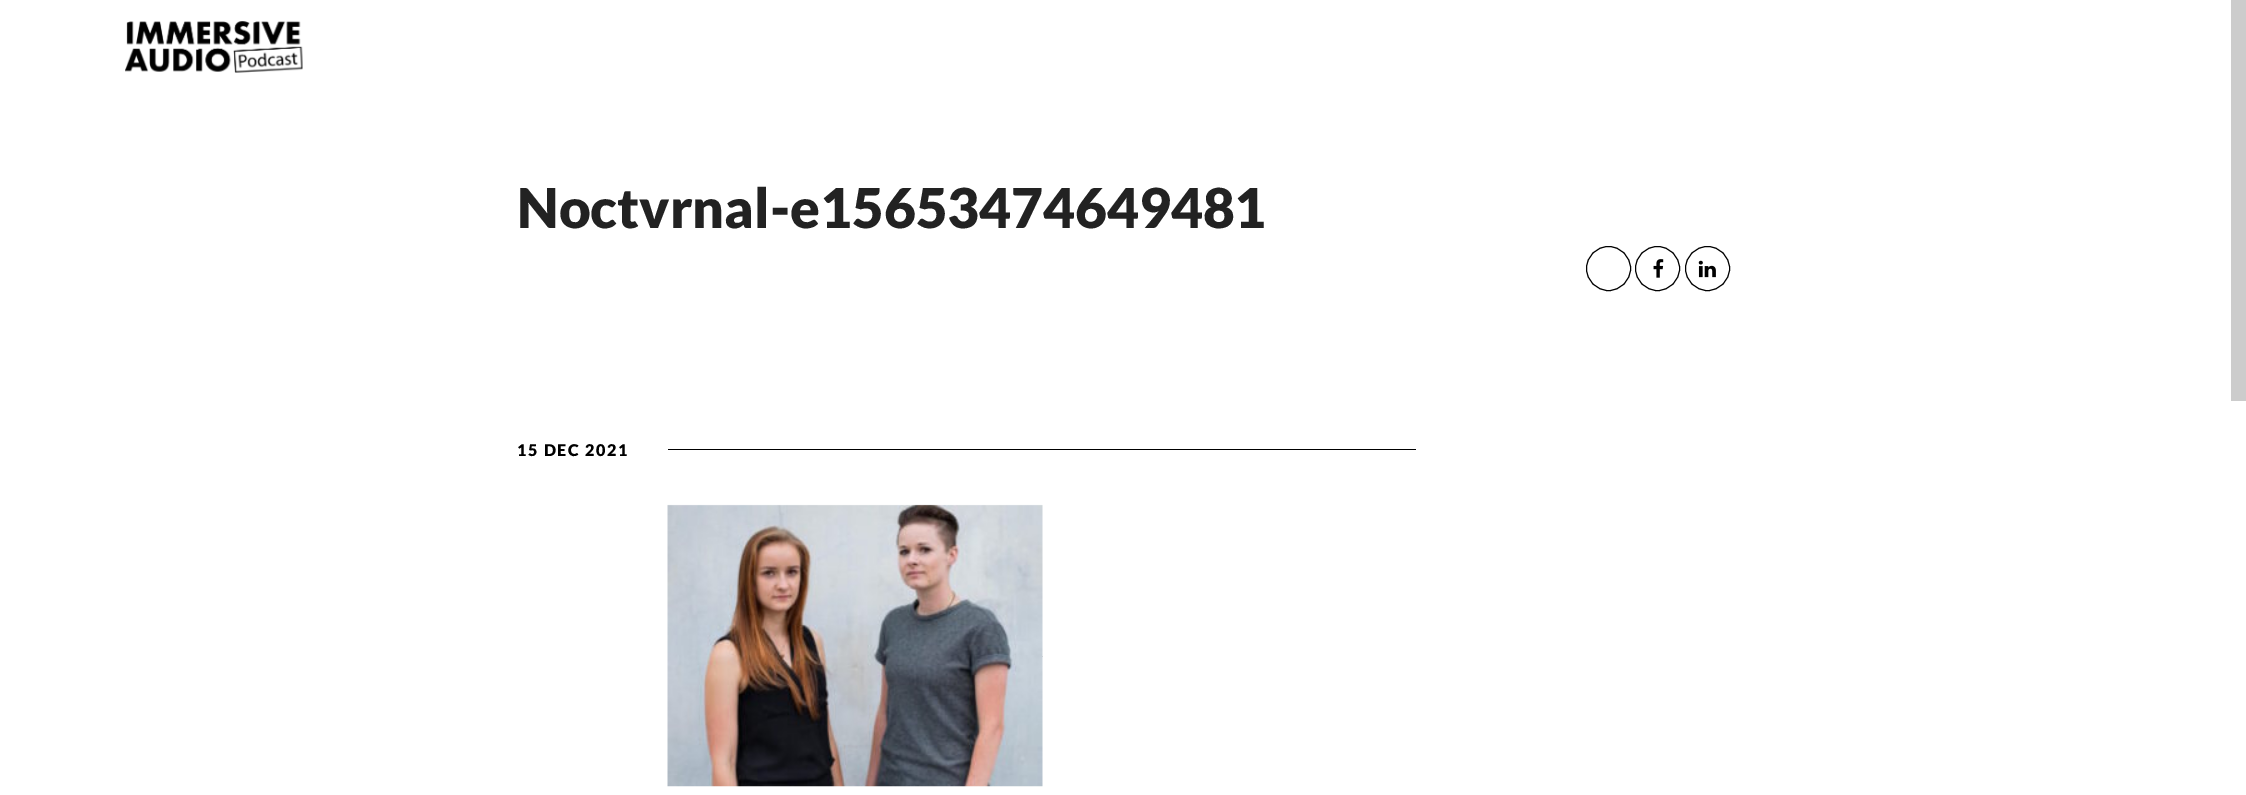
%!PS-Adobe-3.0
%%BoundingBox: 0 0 2246 795
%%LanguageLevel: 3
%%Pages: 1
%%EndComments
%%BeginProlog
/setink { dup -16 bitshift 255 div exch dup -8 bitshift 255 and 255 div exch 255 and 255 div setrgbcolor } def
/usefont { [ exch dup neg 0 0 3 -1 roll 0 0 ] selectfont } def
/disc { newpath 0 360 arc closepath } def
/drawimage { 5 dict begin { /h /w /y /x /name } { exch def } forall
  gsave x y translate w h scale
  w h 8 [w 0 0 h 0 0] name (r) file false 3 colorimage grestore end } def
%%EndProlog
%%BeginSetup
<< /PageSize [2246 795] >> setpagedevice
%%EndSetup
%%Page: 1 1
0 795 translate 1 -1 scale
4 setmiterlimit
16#FFFFFF setink
0 0 2246 795 rectfill
(img1.raw) 125 21 178 52 drawimage
16#CCCCCC setink
2231 0 15 401 rectfill
/Lato-Black 55 usefont
16#222222 setink
517 228 moveto (Noctvrnal-e15653474649481) show
16#000000 setink
1608.5 268.5 22 disc stroke
1657.5 268.5 22 disc stroke
(img2.raw) 1653 259 11 19 drawimage
1707.5 268.5 22 disc stroke
(img3.raw) 1698 260 18 18 drawimage
/Lato-Black 16.25 usefont
517 456 moveto 1.6 0 (15 DEC 2021) ashow
668 449 748 1 rectfill
16#D6D6D6 setink
1042 656 1 1 rectfill
(img4.raw) 667 504 376 283 drawimage
showpage
%%EOF
